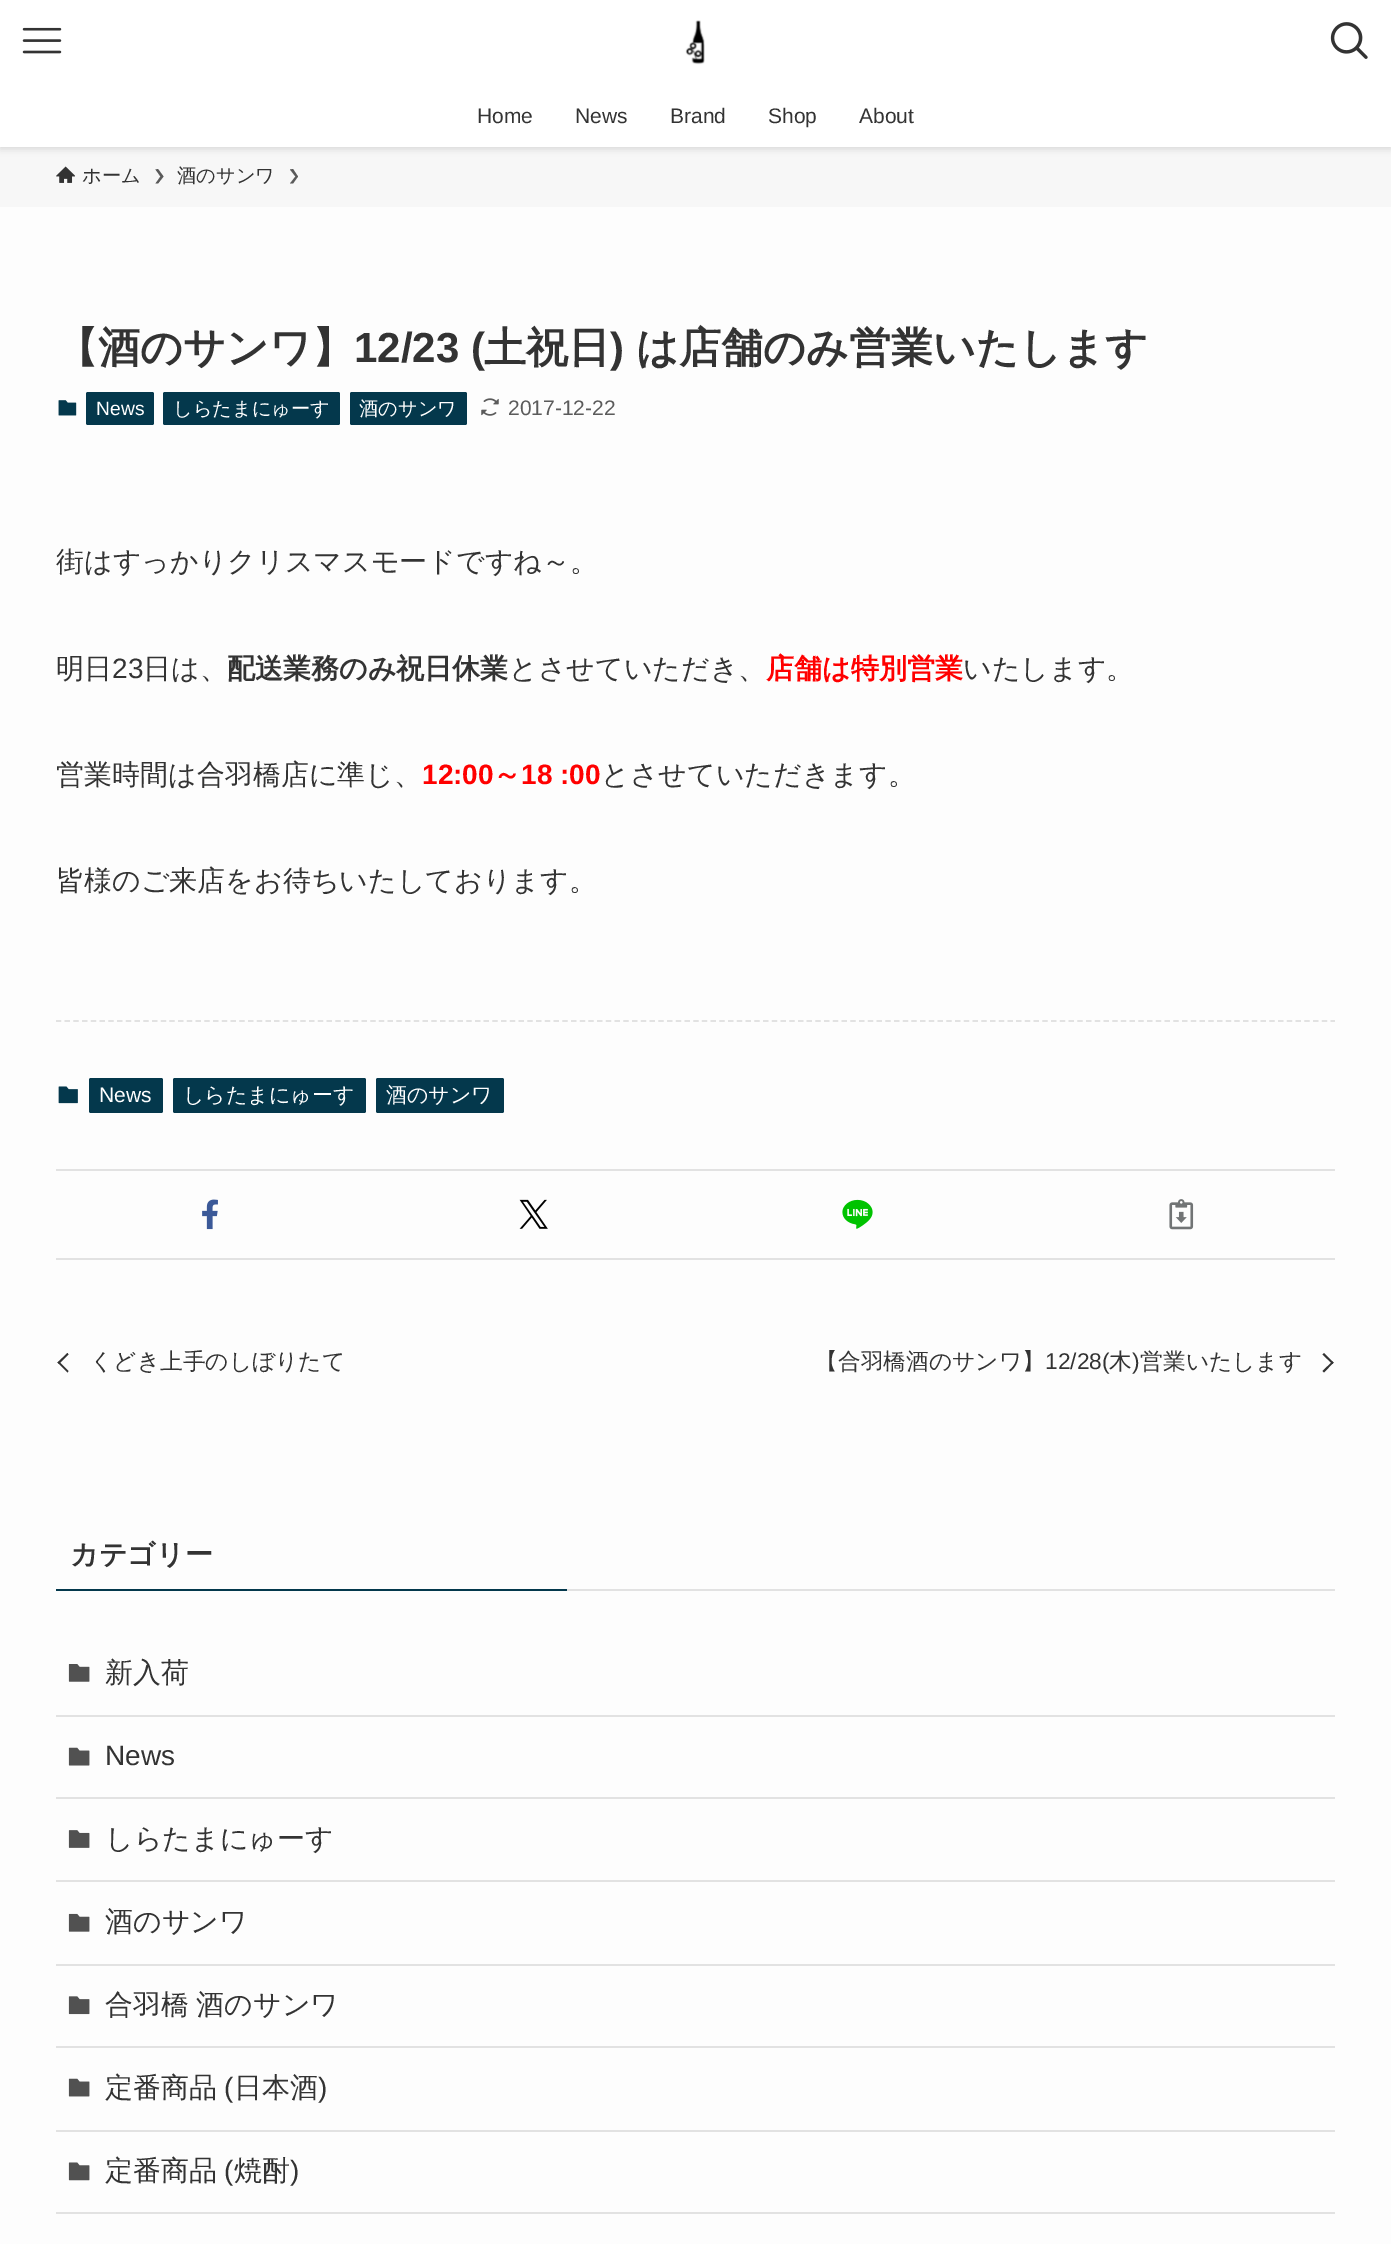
%!PS-Adobe-3.0
%%BoundingBox: 0 0 1391 2244
%%LanguageLevel: 3
%%Pages: 1
%%EndComments
%%BeginProlog
/setink { dup -16 bitshift 255 div exch dup -8 bitshift 255 and 255 div exch 255 and 255 div setrgbcolor } def
/usefont { [ exch dup neg 0 0 3 -1 roll 0 0 ] selectfont } def
/setalpha { dup .setfillconstantalpha .setstrokeconstantalpha } def
/rrect { 5 dict begin { /r /h /w /y /x } { exch def } forall
  x r add y moveto x w add y 2 copy h add r arct x w add y h add x 1 index r arct
  x y h add x y r arct x y 2 copy exch w add exch r arct closepath end } def
/softshadow { 12 dict begin { /a /b /q /h /w /y /x } { exch def } forall gsave /was 0 def
  9 -2 -9 { dup b mul 4 div /e exch def 1 sub .425 mul 2.718 exch exp 1 add a .99 .min exch div /now exch def
    1 1 now sub 1 was sub div sub setalpha /was now def
    w h .min e 2 mul add 0 gt { x e sub y e sub w e 2 mul add h e 2 mul add
      q e add b .6 mul add w h .min 2 div e add .min 0 .max rrect fill } if } for grestore end } def
/drawimage { 5 dict begin { /h /w /y /x /name } { exch def } forall
  gsave x y translate w h scale
  w h 8 [w 0 0 h 0 0] name (r) file false 3 colorimage grestore end } def
%%EndProlog
%%BeginSetup
<< /PageSize [1391 2244] /PageUsesTransparency true >> setpagedevice
%%EndSetup
%%Page: 1 1
0 .pushpdf14devicefilter
0 2244 translate 1 -1 scale
4 setmiterlimit
16#FDFDFD setink
0 0 1391 2244 rectfill
16#F7F7F7 setink
0 147 1391 60 rectfill
16#000000 setink
0 2 1391 147 0 3.5 0.12 softshadow
16#FFFFFF setink
0 0 1391 147 rectfill
(img1.raw) 22 27 40 27 drawimage
(img2.raw) 685 20 20 45 drawimage
(img3.raw) 1330 22 38 37 drawimage
/LiberationSans-Regular 21 usefont
16#333333 setink
[
    [(Home) 477 123]
    [(News) 575 123]
    [(Brand) 670 123]
    [(Shop) 768 123]
    [(About) 859 123]
] { aload pop moveto show } forall
(img4.raw) 56 166 19 17 drawimage
/WenQuanYiZenHei-Medium 19.25 usefont
82 182 moveto (ホーム) show
16#5A5A5A setink
158 169 moveto 155.5 169.5 lineto 160.5 176.5 lineto 155.5 183.5 lineto 158 183.5 lineto 163.5 176.5 lineto closepath fill
16#333333 setink
177 182 moveto (酒のサンワ) show
16#5A5A5A setink
293 169 moveto 290 169.5 lineto 295.5 176.5 lineto 290 183.5 lineto 293 183.5 lineto 298 176.5 lineto closepath fill
/WenQuanYiZenHei-Bold 42 usefont
16#333333 setink
56 362 moveto (【酒のサンワ】) show
/LiberationSans-Bold 42 usefont
354 362 moveto (12/23 \() show
/WenQuanYiZenHei-Bold 42 usefont
484 362 moveto (土祝日) show
/LiberationSans-Bold 42 usefont
610 362 moveto (\)) show
/WenQuanYiZenHei-Bold 42 usefont
636 362 moveto (は店舗のみ営業いたします) show
(img5.raw) 58 400 19 16 drawimage
16#04384C setink
86 392 68 33 2 rrect fill
/LiberationSans-Regular 19.25 usefont
16#FFFFFF setink
96 415 moveto (News) show
16#04384C setink
163 392 177 33 2 rrect fill
/WenQuanYiZenHei-Medium 19.25 usefont
16#FFFFFF setink
173 415 moveto (しらたまにゅーす) show
16#04384C setink
350 392 117 33 2 rrect fill
16#FFFFFF setink
359 415 moveto (酒のサンワ) show
(img6.raw) 481 398 18 18 drawimage
/LiberationSans-Regular 21 usefont
16#5B5B5B setink
508 415 moveto (2017-12-22) show
/WenQuanYiZenHei-Medium 28 usefont
16#333333 setink
56 571 moveto (街はすっかりクリスマスモードですね～。) show
56 678 moveto (明日) show
/LiberationSans-Regular 28 usefont
112 678 moveto (23) show
/WenQuanYiZenHei-Medium 28 usefont
143 678 moveto (日は、) show
/WenQuanYiZenHei-Bold 28 usefont
227 678 moveto (配送業務のみ祝日休業) show
/WenQuanYiZenHei-Medium 28 usefont
509 678 moveto (とさせていただき、) show
/WenQuanYiZenHei-Bold 28 usefont
16#FF0000 setink
766 678 moveto (店舗は特別営業) show
/WenQuanYiZenHei-Medium 28 usefont
16#333333 setink
963 678 moveto (いたします。) show
56 784 moveto (営業時間は合羽橋店に準じ、) show
/LiberationSans-Bold 28 usefont
16#FF0000 setink
422 784 moveto (12:00) show
/WenQuanYiZenHei-Bold 28 usefont
493 784 moveto (～) show
/LiberationSans-Bold 28 usefont
521 784 moveto (18 :00) show
/WenQuanYiZenHei-Medium 28 usefont
16#333333 setink
601 784 moveto (とさせていただきます。) show
56 890 moveto (皆様のご来店をお待ちいたしております。) show
16#E2E2E2 setink
1.8 setlinewidth
[5.25 3.48] 0 setdash
56 1021 moveto 1335 1021 lineto stroke
(img7.raw) 58 1086 20 18 drawimage
16#04384C setink
89 1078 74 35 2 rrect fill
/LiberationSans-Regular 21 usefont
16#FFFFFF setink
99 1102 moveto (News) show
16#04384C setink
173 1078 193 35 2 rrect fill
/WenQuanYiZenHei-Medium 21 usefont
16#FFFFFF setink
183 1102 moveto (しらたまにゅーす) show
16#04384C setink
376 1078 128 35 2 rrect fill
16#FFFFFF setink
386 1102 moveto (酒のサンワ) show
16#E2E2E2 setink
56 1169 1279 2 rectfill
56 1258 1279 2 rectfill
(img8.raw) 202 1199 16 31 drawimage
(img9.raw) 519 1199 29 30 drawimage
(img10.raw) 842 1199 31 30 drawimage
(img11.raw) 1169 1199 25 31 drawimage
16#333333 setink
59 1361.5 moveto 68.5 1371 lineto 67.5 1372.5 lineto 57.5 1362.5 lineto closepath fill
67.5 1353 moveto 68.5 1354.5 lineto 59 1364 lineto 57.5 1362.5 lineto closepath fill
/WenQuanYiZenHei-Medium 22.75 usefont
90 1369 moveto (くどき上手のしぼりたて) show
815 1369 moveto (【合羽橋酒のサンワ】) show
/LiberationSans-Regular 22.75 usefont
1045 1369 moveto (12/28\() show
/WenQuanYiZenHei-Medium 22.75 usefont
1109 1369 moveto (木) show
/LiberationSans-Regular 22.75 usefont
1132 1369 moveto (\)) show
/WenQuanYiZenHei-Medium 22.75 usefont
1140 1369 moveto (営業いたします) show
1322.5 1354.5 moveto 1324 1353 lineto 1333.5 1362.5 lineto 1332.5 1364 lineto closepath fill
1322.5 1371 moveto 1332.5 1361.5 lineto 1333.5 1362.5 lineto 1324 1372.5 lineto closepath fill
/WenQuanYiZenHei-Bold 28 usefont
70 1564 moveto (カテゴリー) show
[
    [56 1589 511 2 16#04384C]
    [567 1589 768 2 16#E2E2E2]
    [56 1715 1279 2 16#E2E2E2]
] { aload pop setink rectfill } forall
(img12.raw) 68 1664 22 18 drawimage
/WenQuanYiZenHei-Medium 28 usefont
16#333333 setink
105 1682 moveto (新入荷) show
16#E2E2E2 setink
56 1797 1279 2 rectfill
(img13.raw) 68 1747 22 19 drawimage
/LiberationSans-Regular 28 usefont
16#333333 setink
105 1765 moveto (News) show
16#E2E2E2 setink
56 1880 1279 2 rectfill
(img14.raw) 68 1830 22 18 drawimage
/WenQuanYiZenHei-Medium 28 usefont
16#333333 setink
105 1848 moveto (しらたまにゅーす) show
16#E2E2E2 setink
56 1964 1279 2 rectfill
(img15.raw) 68 1913 22 19 drawimage
16#333333 setink
105 1931 moveto (酒のサンワ) show
16#E2E2E2 setink
56 2046 1279 2 rectfill
(img16.raw) 68 1996 22 19 drawimage
16#333333 setink
105 2014 moveto -1 0 32 (合羽橋 酒のサンワ) widthshow
16#E2E2E2 setink
56 2130 1279 2 rectfill
(img17.raw) 68 2078 22 19 drawimage
16#333333 setink
105 2097 moveto (定番商品) show
/LiberationSans-Regular 28 usefont
224 2097 moveto (\() show
/WenQuanYiZenHei-Medium 28 usefont
234 2097 moveto (日本酒) show
/LiberationSans-Regular 28 usefont
318 2097 moveto (\)) show
16#E2E2E2 setink
56 2212 1279 2 rectfill
(img18.raw) 68 2162 22 19 drawimage
/WenQuanYiZenHei-Medium 28 usefont
16#333333 setink
105 2180 moveto (定番商品) show
/LiberationSans-Regular 28 usefont
224 2180 moveto (\() show
/WenQuanYiZenHei-Medium 28 usefont
234 2180 moveto (焼酎) show
/LiberationSans-Regular 28 usefont
290 2180 moveto (\)) show
.poppdf14devicefilter showpage
%%EOF
